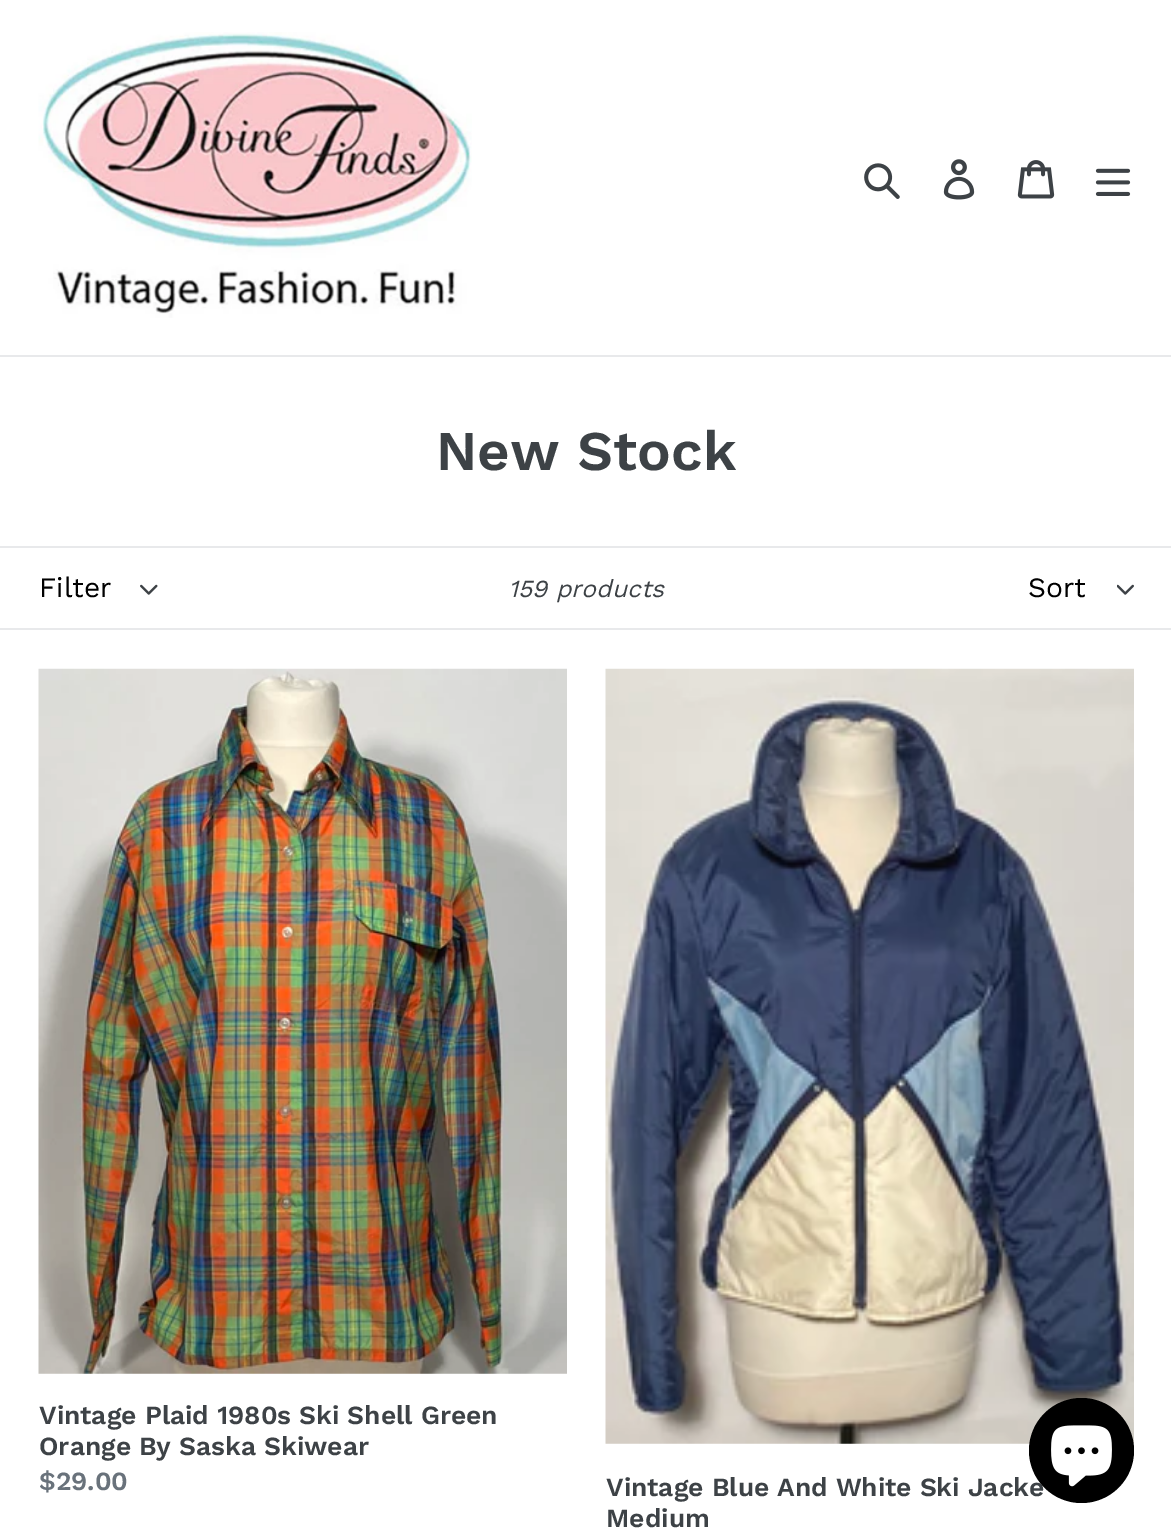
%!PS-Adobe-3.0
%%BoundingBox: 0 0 1171 1539
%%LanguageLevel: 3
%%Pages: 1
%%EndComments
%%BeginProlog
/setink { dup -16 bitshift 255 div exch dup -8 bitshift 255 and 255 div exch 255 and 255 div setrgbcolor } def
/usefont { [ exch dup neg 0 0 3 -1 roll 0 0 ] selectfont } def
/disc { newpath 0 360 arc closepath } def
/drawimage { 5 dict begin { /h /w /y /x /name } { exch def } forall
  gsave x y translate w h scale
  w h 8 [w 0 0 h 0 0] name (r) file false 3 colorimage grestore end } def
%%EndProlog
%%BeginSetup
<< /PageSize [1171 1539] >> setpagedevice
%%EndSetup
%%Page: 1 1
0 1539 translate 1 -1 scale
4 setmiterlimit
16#FFFFFF setink
0 0 1171 1539 rectfill
16#E8E9EB setink
0 355 1171 2 rectfill
(img1.raw) 38 32 434 286 drawimage
(img2.raw) 864 163 36 36 drawimage
(img3.raw) 943 159 32 41 drawimage
(img4.raw) 1017 160 38 39 drawimage
(img5.raw) 1095 168 36 28 drawimage
/WorkSans-SemiBold 56 usefont
16#3D4246 setink
436 470 moveto (New Stock) show
16#E8E9EB setink
0 546 1171 2 rectfill
0 628 1171 2 rectfill
/WorkSans-Regular 28 usefont
16#000000 setink
39 597 moveto (Filter) show
(img6.raw) 140 584 18 11 drawimage
/WorkSans-Italic 24.5 usefont
16#3D4246 setink
508 597 moveto (159 products) show
/WorkSans-Regular 28 usefont
16#000000 setink
1028 597 moveto (Sort) show
(img7.raw) 1117 584 17 11 drawimage
(img8.raw) 38 668 529 706 drawimage
/WorkSans-SemiBold 26.25 usefont
16#3D4246 setink
39 1424 moveto (Vintage Plaid 1980s Ski Shell Green) show
39 1455 moveto (Orange By Saska Skiwear) show
16#69727B setink
39 1490 moveto ($29.00) show
(img9.raw) 605 668 529 776 drawimage
16#3D4246 setink
606 1496 moveto (Vintage Blue And White Ski Jacke) show
606 1527 moveto (Medium) show
16#000000 setink
1081.5 1450.5 52.5 disc fill
(img10.raw) 1051 1425 61 62 drawimage
showpage
%%EOF
